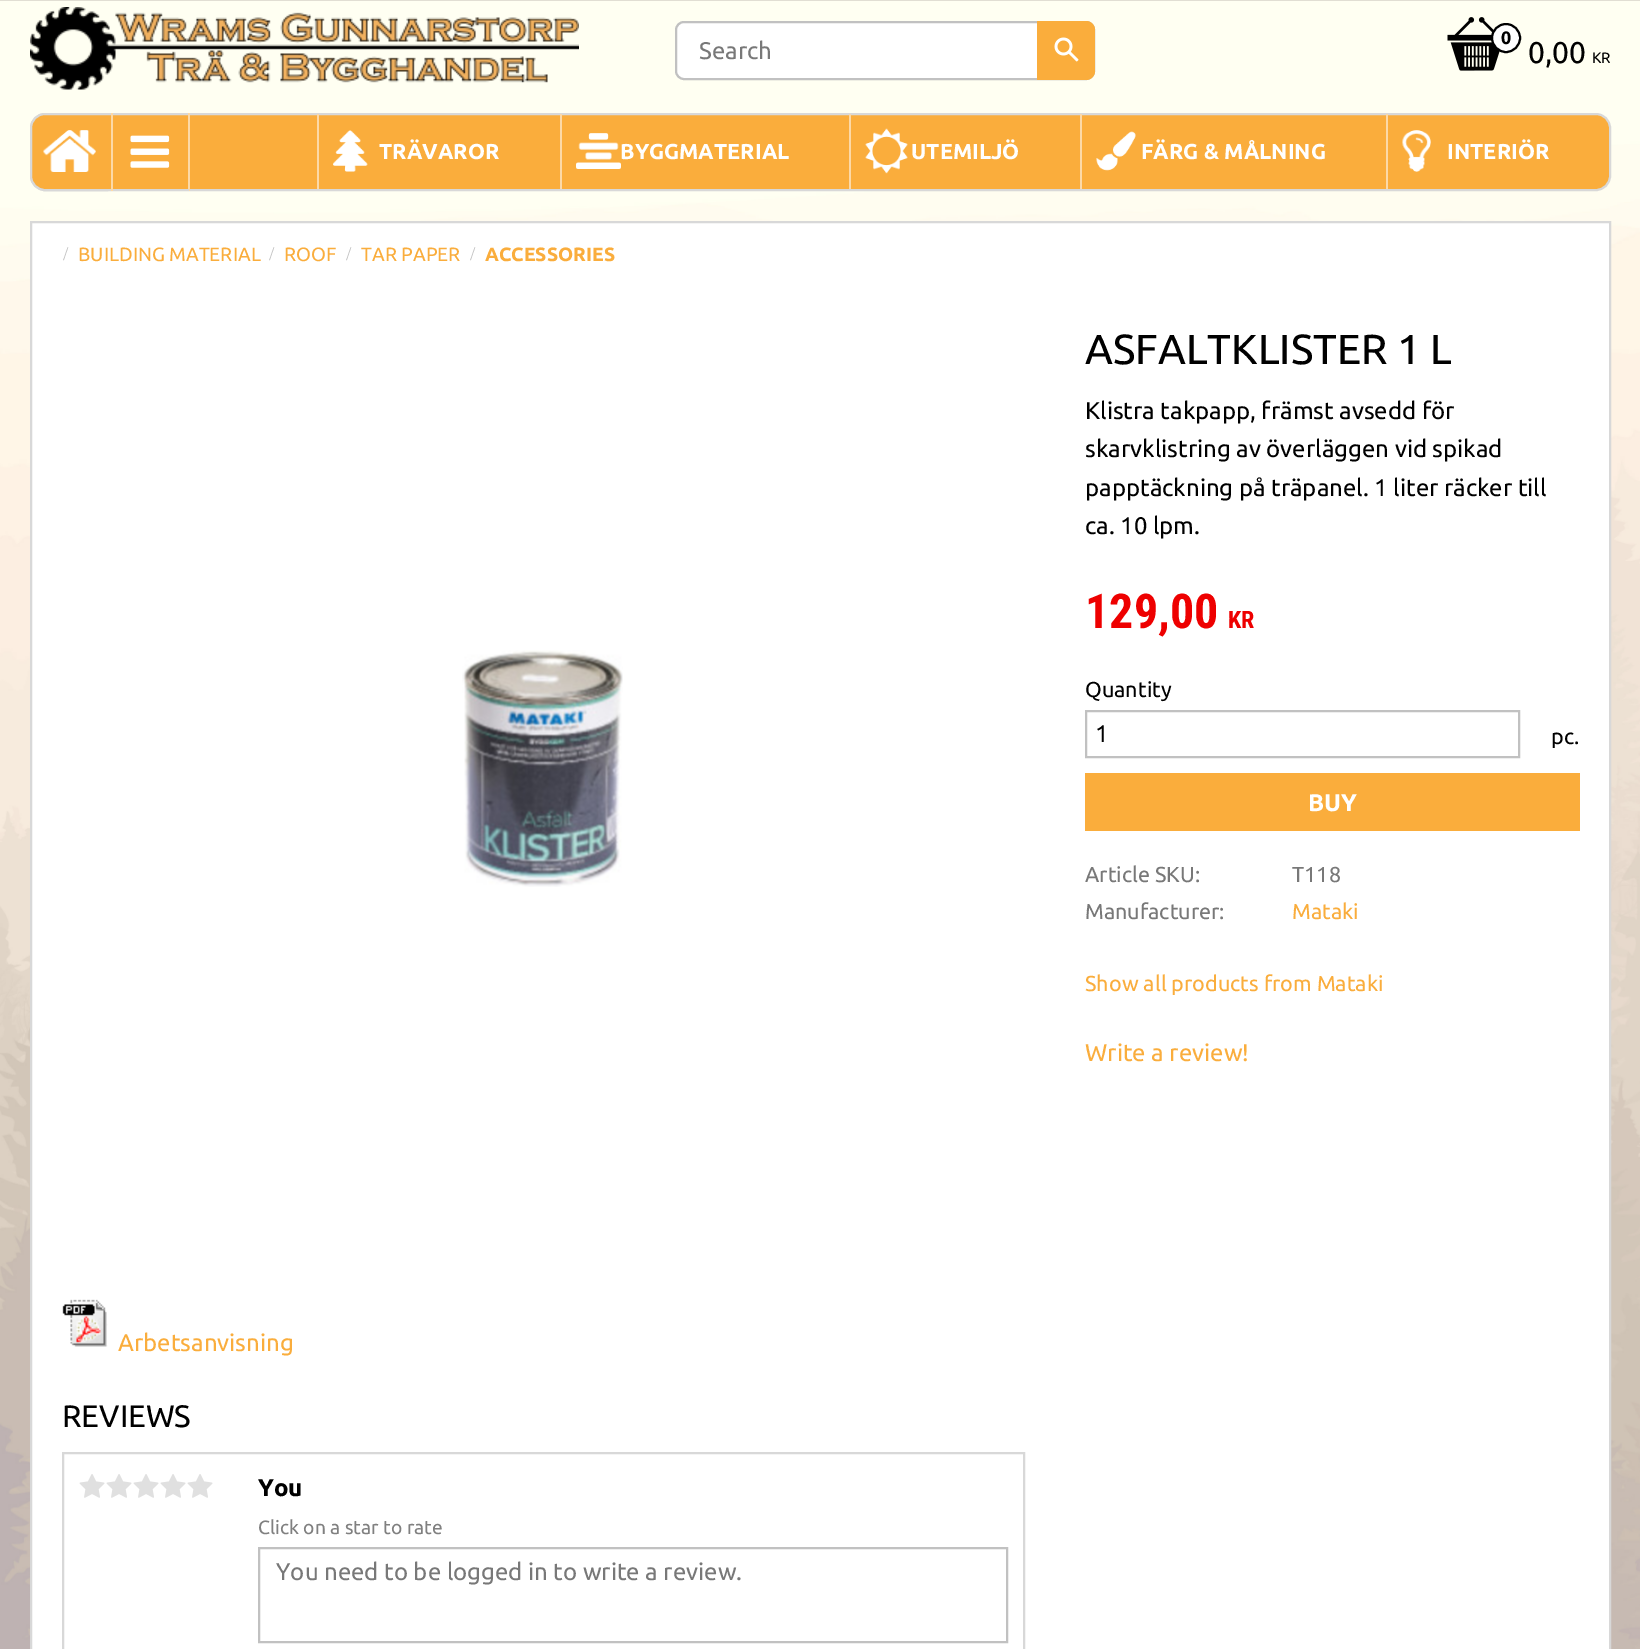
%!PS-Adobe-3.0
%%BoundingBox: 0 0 1640 1649
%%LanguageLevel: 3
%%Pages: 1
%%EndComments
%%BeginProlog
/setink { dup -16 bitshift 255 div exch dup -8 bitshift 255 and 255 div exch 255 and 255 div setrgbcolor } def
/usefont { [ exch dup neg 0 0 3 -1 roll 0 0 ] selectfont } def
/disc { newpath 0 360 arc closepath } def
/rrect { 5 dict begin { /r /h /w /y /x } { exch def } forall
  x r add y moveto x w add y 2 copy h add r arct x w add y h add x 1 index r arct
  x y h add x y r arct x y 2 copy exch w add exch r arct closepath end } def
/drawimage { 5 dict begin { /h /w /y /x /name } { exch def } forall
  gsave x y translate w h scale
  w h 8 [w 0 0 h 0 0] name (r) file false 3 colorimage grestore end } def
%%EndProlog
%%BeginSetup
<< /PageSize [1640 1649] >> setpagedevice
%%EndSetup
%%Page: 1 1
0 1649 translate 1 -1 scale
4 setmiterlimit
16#FFFFFF setink
0 0 1640 1649 rectfill
(img1.raw) 0 0 1640 1649 drawimage
16#D8D8D8 setink
2 setlinewidth
45 114 moveto 107 114 lineto 107 190 lineto 45 190 lineto 37.5 190 31 183.5 31 176 curveto 31 128 lineto 31 120.5 37.5 114 45 114 curveto closepath stroke
16#FAAD3C setink
31 114 1579 76 14 rrect gsave fill grestore
16#D8D8D8 setink
stroke
[
    [188 113 2 78 16#FCD9A7]
    [188 189 1 2 16#D8D8D8]
    [111 113 2 78 16#FCD9A7]
] { aload pop setink rectfill } forall
(img2.raw) 130 135 40 33 drawimage
(img3.raw) 30 7 549 83 drawimage
16#FFFFFF setink
676 22 418 57 8 rrect gsave fill grestore
16#C1C1C1 setink
stroke
/Ubuntu-Regular 24 usefont
16#787878 setink
699 59 moveto (Search) show
16#FAAD3C setink
1037 21 moveto 1086 21 lineto 1091 21 1095 25 1095 30 curveto 1095 71 lineto 1095 76 1091 80 1086 80 curveto 1037 80 lineto closepath fill
(img4.raw) 1054 37 25 25 drawimage
(img5.raw) 1447 17 53 54 drawimage
16#FFFFFF setink
1506 38 14 disc gsave fill grestore
16#000000 setink
stroke
/Ubuntu-Bold 18 usefont
1501 44 moveto (0) show
/Ubuntu-Regular 30 usefont
1528 63 moveto (0,00) show
/Ubuntu-Regular 15 usefont
1592 63 moveto (KR) show
(img6.raw) 43 130 53 42 drawimage
16#FCD9A7 setink
317 114 2 75 rectfill
(img7.raw) 333 130 35 42 drawimage
560 114 2 75 rectfill
/Ubuntu-Bold 21.6 usefont
16#FFFFFF setink
379 159 moveto (TRÄVAROR) show
(img8.raw) 576 133 45 36 drawimage
16#FCD9A7 setink
849 114 2 75 rectfill
16#FFFFFF setink
620 159 moveto (BYGGMATERIAL) show
(img9.raw) 865 128 43 46 drawimage
16#FCD9A7 setink
1080 114 2 75 rectfill
16#FFFFFF setink
911 159 moveto (UTEMILJÖ) show
(img10.raw) 1096 131 40 40 drawimage
16#FCD9A7 setink
1386 114 2 75 rectfill
16#FFFFFF setink
1141 159 moveto (FÄRG & MÅLNING) show
(img11.raw) 1402 130 29 42 drawimage
1447 159 moveto (INTERIÖR) show
31 222 moveto 1610 222 lineto 1610 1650 lineto 31 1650 lineto closepath gsave fill grestore
16#D8D8D8 setink
stroke
/LiberationSerif-Regular 19.25 usefont
16#C3C3C3 setink
63 260 moveto (/) show
/Ubuntu-Regular 19.25 usefont
16#FAAD3C setink
78 261 moveto (BUILDING MATERIAL) show
/LiberationSerif-Regular 19.25 usefont
16#C3C3C3 setink
269 260 moveto (/) show
/Ubuntu-Regular 19.25 usefont
16#FAAD3C setink
284 261 moveto (ROOF) show
/LiberationSerif-Regular 19.25 usefont
16#C3C3C3 setink
346 260 moveto (/) show
/Ubuntu-Regular 19.25 usefont
16#FAAD3C setink
361 261 moveto (TAR PAPER) show
/LiberationSerif-Regular 19.25 usefont
16#C3C3C3 setink
470 260 moveto (/) show
/Ubuntu-Bold 19.25 usefont
16#FAAD3C setink
485 261 moveto (ACCESSORIES) show
/Ubuntu-Regular 42 usefont
16#000000 setink
1085 364 moveto (ASFALTKLISTER 1 L) show
/Ubuntu-Regular 24 usefont
[
    [(Klistra takpapp, främst avsedd för) 1085 419]
    [(skarvklistring av överläggen vid spikad) 1085 457]
    [(papptäckning på träpanel. 1 liter räcker till) 1085 496]
    [(ca. 10 lpm.) 1085 534]
] { aload pop moveto show } forall
(img12.raw) 462 650 161 237 drawimage
/RobotoCondensed-Bold 48 usefont
16#EE0000 setink
1085 628 moveto (129,00) show
/RobotoCondensed-Bold 24 usefont
1228 628 moveto (KR) show
/Ubuntu-Regular 21.6 usefont
16#000000 setink
1085 697 moveto (Quantity) show
16#C1C1C1 setink
1086 711 433 46 rectstroke
/Ubuntu-Regular 24 usefont
16#000000 setink
1095 742 moveto (1) show
/Ubuntu-Regular 21.6 usefont
1551 744 moveto (pc.) show
16#FAAD3C setink
1085 773 495 58 rectfill
/Ubuntu-Bold 24 usefont
16#FFFFFF setink
1308 811 moveto (BUY) show
/Ubuntu-Regular 21.6 usefont
16#787878 setink
[
    [(Article SKU:) 1085 882]
    [(T118) 1292 882]
    [(Manufacturer:) 1085 919]
] { aload pop moveto show } forall
16#FAAD3C setink
1292 919 moveto (Mataki) show
1085 991 moveto (Show all products from Mataki) show
/Ubuntu-Regular 24 usefont
1085 1061 moveto (Write a review!) show
(img13.raw) 62 1299 46 48 drawimage
118 1351 moveto (Arbetsanvisning) show
/Ubuntu-Regular 31 usefont
16#000000 setink
62 1427 moveto (REVIEWS) show
16#D8D8D8 setink
63 1453 961 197 rectstroke
(img14.raw) 79 1474 26 24 drawimage
(img14.raw) 106 1474 26 24 drawimage
(img14.raw) 133 1474 26 24 drawimage
(img14.raw) 160 1474 26 24 drawimage
(img14.raw) 187 1474 26 24 drawimage
/Ubuntu-Bold 24 usefont
16#000000 setink
258 1496 moveto (You) show
/Ubuntu-Regular 19.25 usefont
16#808080 setink
258 1534 moveto (Click on a star to rate) show
16#C1C1C1 setink
259 1548 748 94 rectstroke
/Ubuntu-Regular 24 usefont
16#787878 setink
276 1580 moveto (You need to be logged in to write a review.) show
showpage
%%EOF
